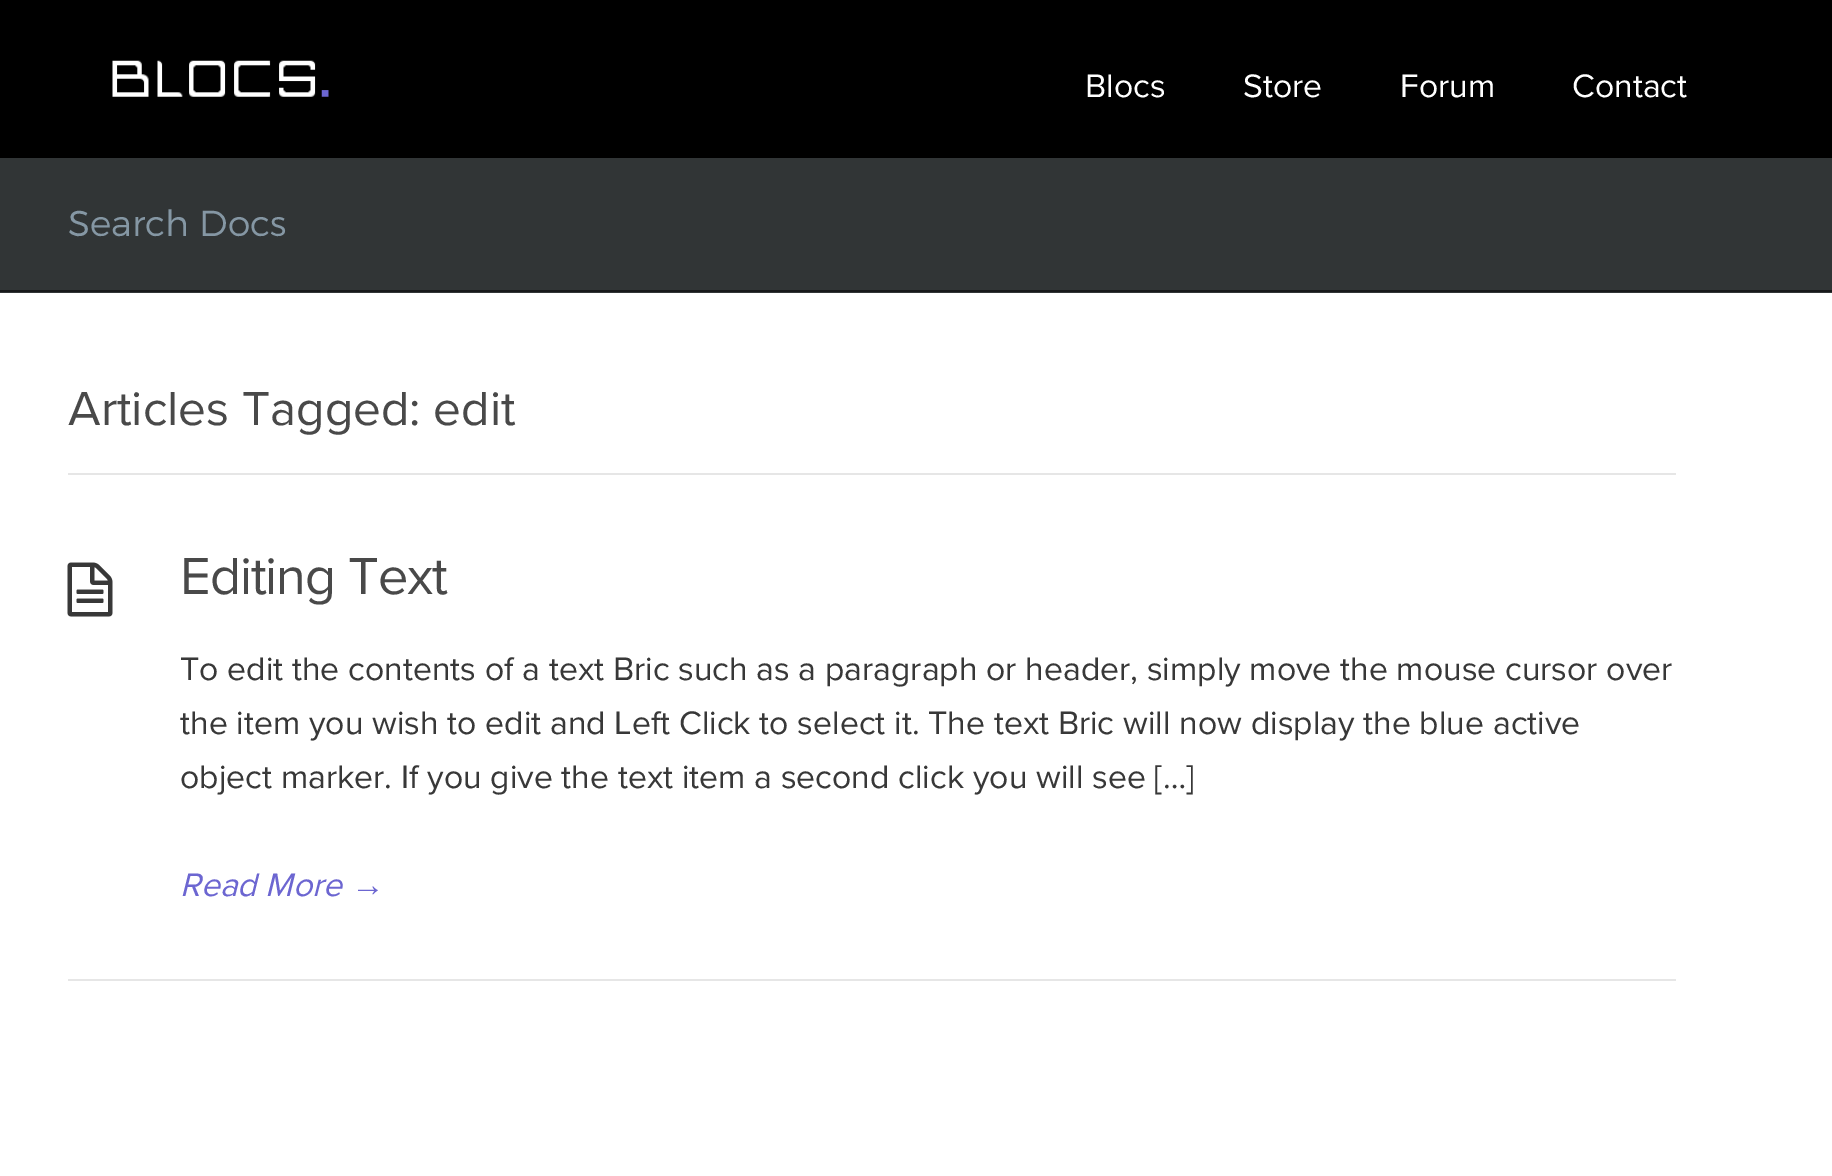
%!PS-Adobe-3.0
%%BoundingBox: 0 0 1832 1176
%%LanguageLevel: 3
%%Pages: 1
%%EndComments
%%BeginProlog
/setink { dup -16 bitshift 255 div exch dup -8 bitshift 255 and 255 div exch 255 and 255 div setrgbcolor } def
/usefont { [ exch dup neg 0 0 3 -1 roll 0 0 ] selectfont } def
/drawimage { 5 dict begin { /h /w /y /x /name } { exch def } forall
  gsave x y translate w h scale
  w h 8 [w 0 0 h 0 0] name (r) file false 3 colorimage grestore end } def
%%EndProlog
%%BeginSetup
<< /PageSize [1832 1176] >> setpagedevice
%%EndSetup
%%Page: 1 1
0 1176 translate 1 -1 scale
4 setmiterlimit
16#FFFFFF setink
0 0 1832 1176 rectfill
16#000000 setink
0 0 1832 158 rectfill
(img1.raw) 112 60 217 37 drawimage
/ProximaNova-Regular 33.75 usefont
16#FFFFFF setink
[
    [(Blocs) 1085 97]
    [(Store) 1243 97]
    [(Forum) 1400 97]
    [(Contact) 1572 97]
] { aload pop moveto show } forall
16#313536 setink
0 158 1832 135 rectfill
16#17191A setink
0 290 1832 2 rectfill
/Montserrat-Light 36 usefont
16#8597A4 setink
68 236 moveto (Search Docs) show
16#E6E6E6 setink
68 473 1608 2 rectfill
/ProximaNova-Regular 49.5 usefont
16#494949 setink
68 425 moveto (Articles Tagged: edit) show
16#E6E6E6 setink
68 979 1608 2 rectfill
(img2.raw) 67 562 46 55 drawimage
/ProximaNova-Regular 54 usefont
16#494949 setink
180 594 moveto -1.1 0 (Editing Text) ashow
/ProximaNova-Regular 33.75 usefont
16#383838 setink
[
    [(To edit the contents of a text Bric such as a paragraph or header, simply move the mouse cursor over) 180 680]
    [(the item you wish to edit and Left Click to select it. The text Bric will now display the blue active) 180 734]
    [(object marker. If you give the text item a second click you will see […]) 180 788]
] { aload pop moveto show } forall
/ProximaNova-Italic 33.75 usefont
16#6C66D1 setink
180 896 moveto (Read More) show
/LiberationSans-Italic 33.75 usefont
351 896 moveto (→) show
showpage
%%EOF
